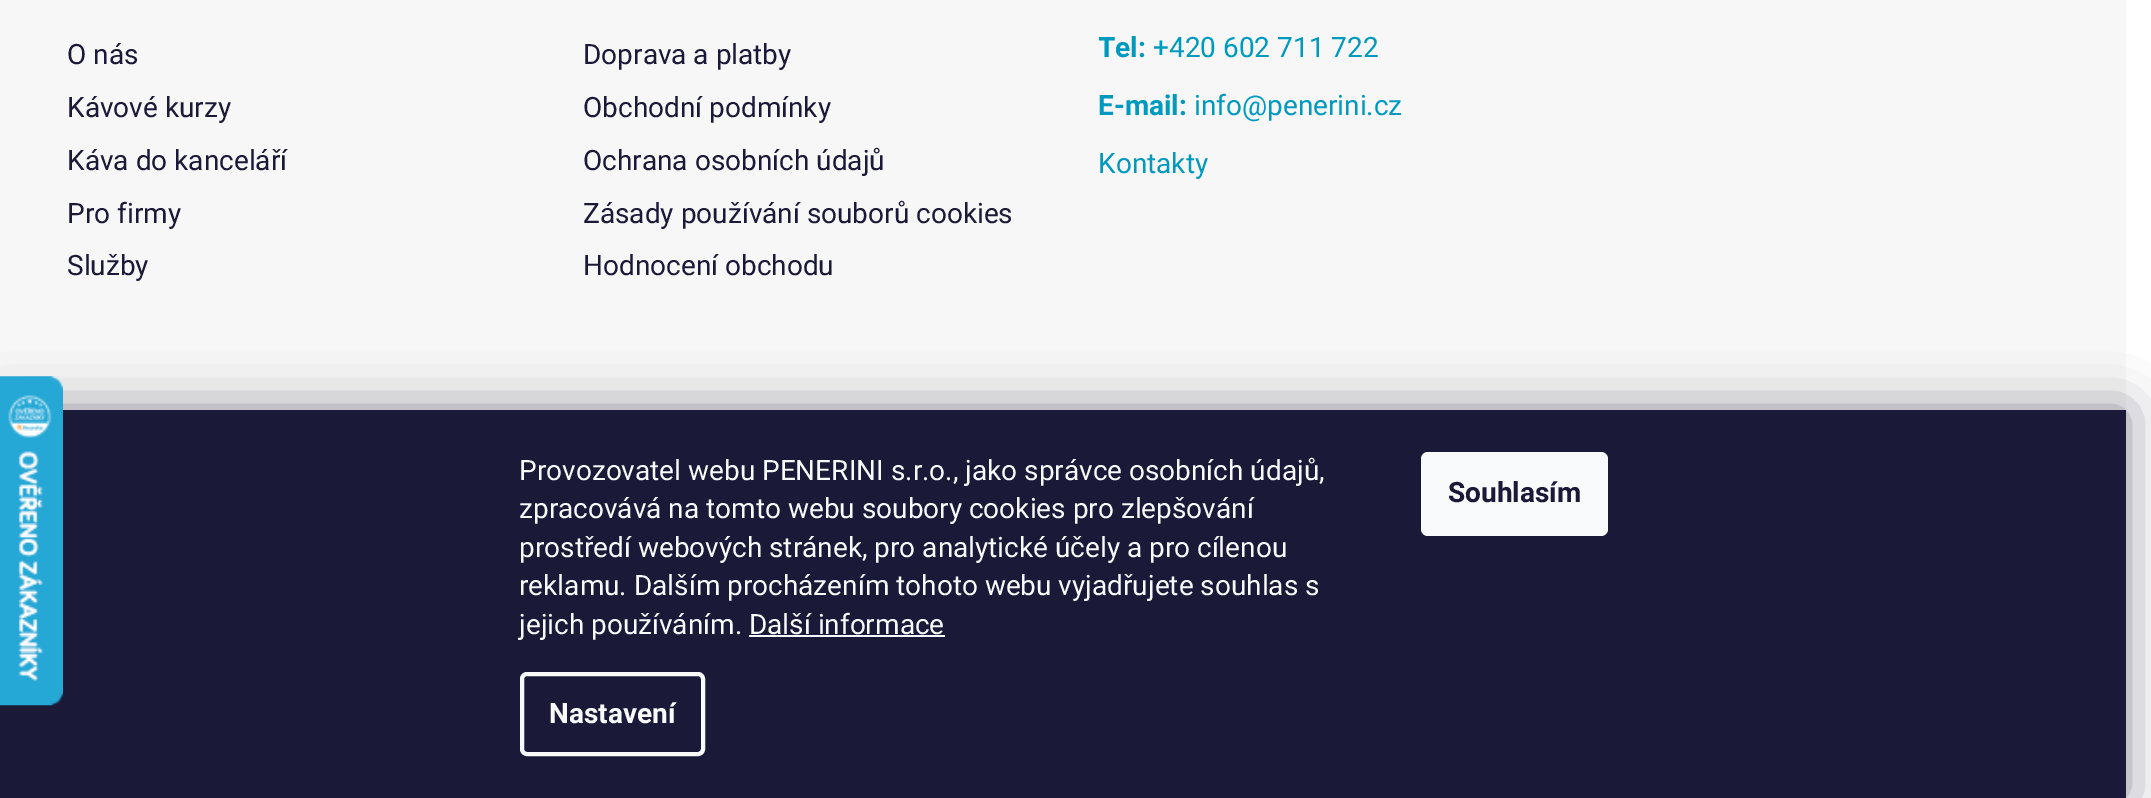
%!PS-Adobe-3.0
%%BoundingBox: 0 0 2151 798
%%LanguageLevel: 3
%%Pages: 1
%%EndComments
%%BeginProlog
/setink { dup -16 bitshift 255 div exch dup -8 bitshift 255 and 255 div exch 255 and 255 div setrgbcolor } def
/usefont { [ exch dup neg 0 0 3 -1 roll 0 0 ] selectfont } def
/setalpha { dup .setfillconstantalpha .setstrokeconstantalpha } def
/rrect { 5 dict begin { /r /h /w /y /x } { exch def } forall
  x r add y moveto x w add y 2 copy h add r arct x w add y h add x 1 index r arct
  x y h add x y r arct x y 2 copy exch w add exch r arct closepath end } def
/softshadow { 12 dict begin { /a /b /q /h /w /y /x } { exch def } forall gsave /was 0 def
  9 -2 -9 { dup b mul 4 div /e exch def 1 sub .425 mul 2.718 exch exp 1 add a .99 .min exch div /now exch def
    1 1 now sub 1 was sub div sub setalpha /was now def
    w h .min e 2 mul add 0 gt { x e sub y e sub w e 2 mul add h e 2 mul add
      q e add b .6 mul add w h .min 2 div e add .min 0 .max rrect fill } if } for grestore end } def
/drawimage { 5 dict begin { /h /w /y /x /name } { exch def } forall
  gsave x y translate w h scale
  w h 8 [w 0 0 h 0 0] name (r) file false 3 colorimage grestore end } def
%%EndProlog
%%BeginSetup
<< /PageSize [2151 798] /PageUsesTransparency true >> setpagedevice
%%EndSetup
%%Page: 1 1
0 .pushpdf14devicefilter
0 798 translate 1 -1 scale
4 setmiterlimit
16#FFFFFF setink
0 0 2151 798 rectfill
16#F7F7F7 setink
0 0 2126 410 rectfill
/Roboto-Regular 28 usefont
16#1A1937 setink
[
    [(O nás) 67 64]
    [(Kávové kurzy) 67 117]
    [(Káva do kanceláří) 67 170]
    [(Pro firmy) 67 223]
    [(Služby) 67 275]
    [(Doprava a platby) 583 64]
    [(Obchodní podmínky) 583 117]
    [(Ochrana osobních údajů) 583 170]
    [(Zásady používání souborů cookies) 583 223]
    [(Hodnocení obchodu) 583 275]
] { aload pop moveto show } forall
gsave
1099 0 445 203 rectclip
/Roboto-Bold 28 usefont
16#009ABF setink
1098 57 moveto (Tel:) show
grestore
16#009ABF setink
1153 57 moveto (+420 602 711 722) show
/Roboto-Bold 28 usefont
1098 115 moveto (E-mail:) show
/Roboto-Regular 28 usefont
1194 115 moveto (info@penerini.cz) show
1098 173 moveto (Kontakty) show
16#1B1939 setink
0 410 2126 388 0 26 0.5 softshadow
16#1A1937 setink
0 410 2126 388 rectfill
(img1.raw) 0 376 63 330 drawimage
16#F8FAFB setink
[
    [(Provozovatel webu PENERINI s.r.o., jako správce osobních údajů,) 519 480]
    [(zpracovává na tomto webu soubory cookies pro zlepšování) 519 518]
    [(prostředí webových stránek, pro analytické účely a pro cílenou) 519 557]
    [(reklamu. Dalším procházením tohoto webu vyjadřujete souhlas s) 519 595]
    [(jejich používáním. Další informace) 519 634]
] { aload pop moveto show } forall
749 635 196 2 rectfill
4 setlinewidth
522 674 181 80 5 rrect stroke
/Roboto-Bold 28 usefont
549 723 moveto (Nastavení) show
1421 452 187 84 7 rrect fill
16#1A1937 setink
1448 502 moveto (Souhlasím) show
.poppdf14devicefilter showpage
%%EOF
